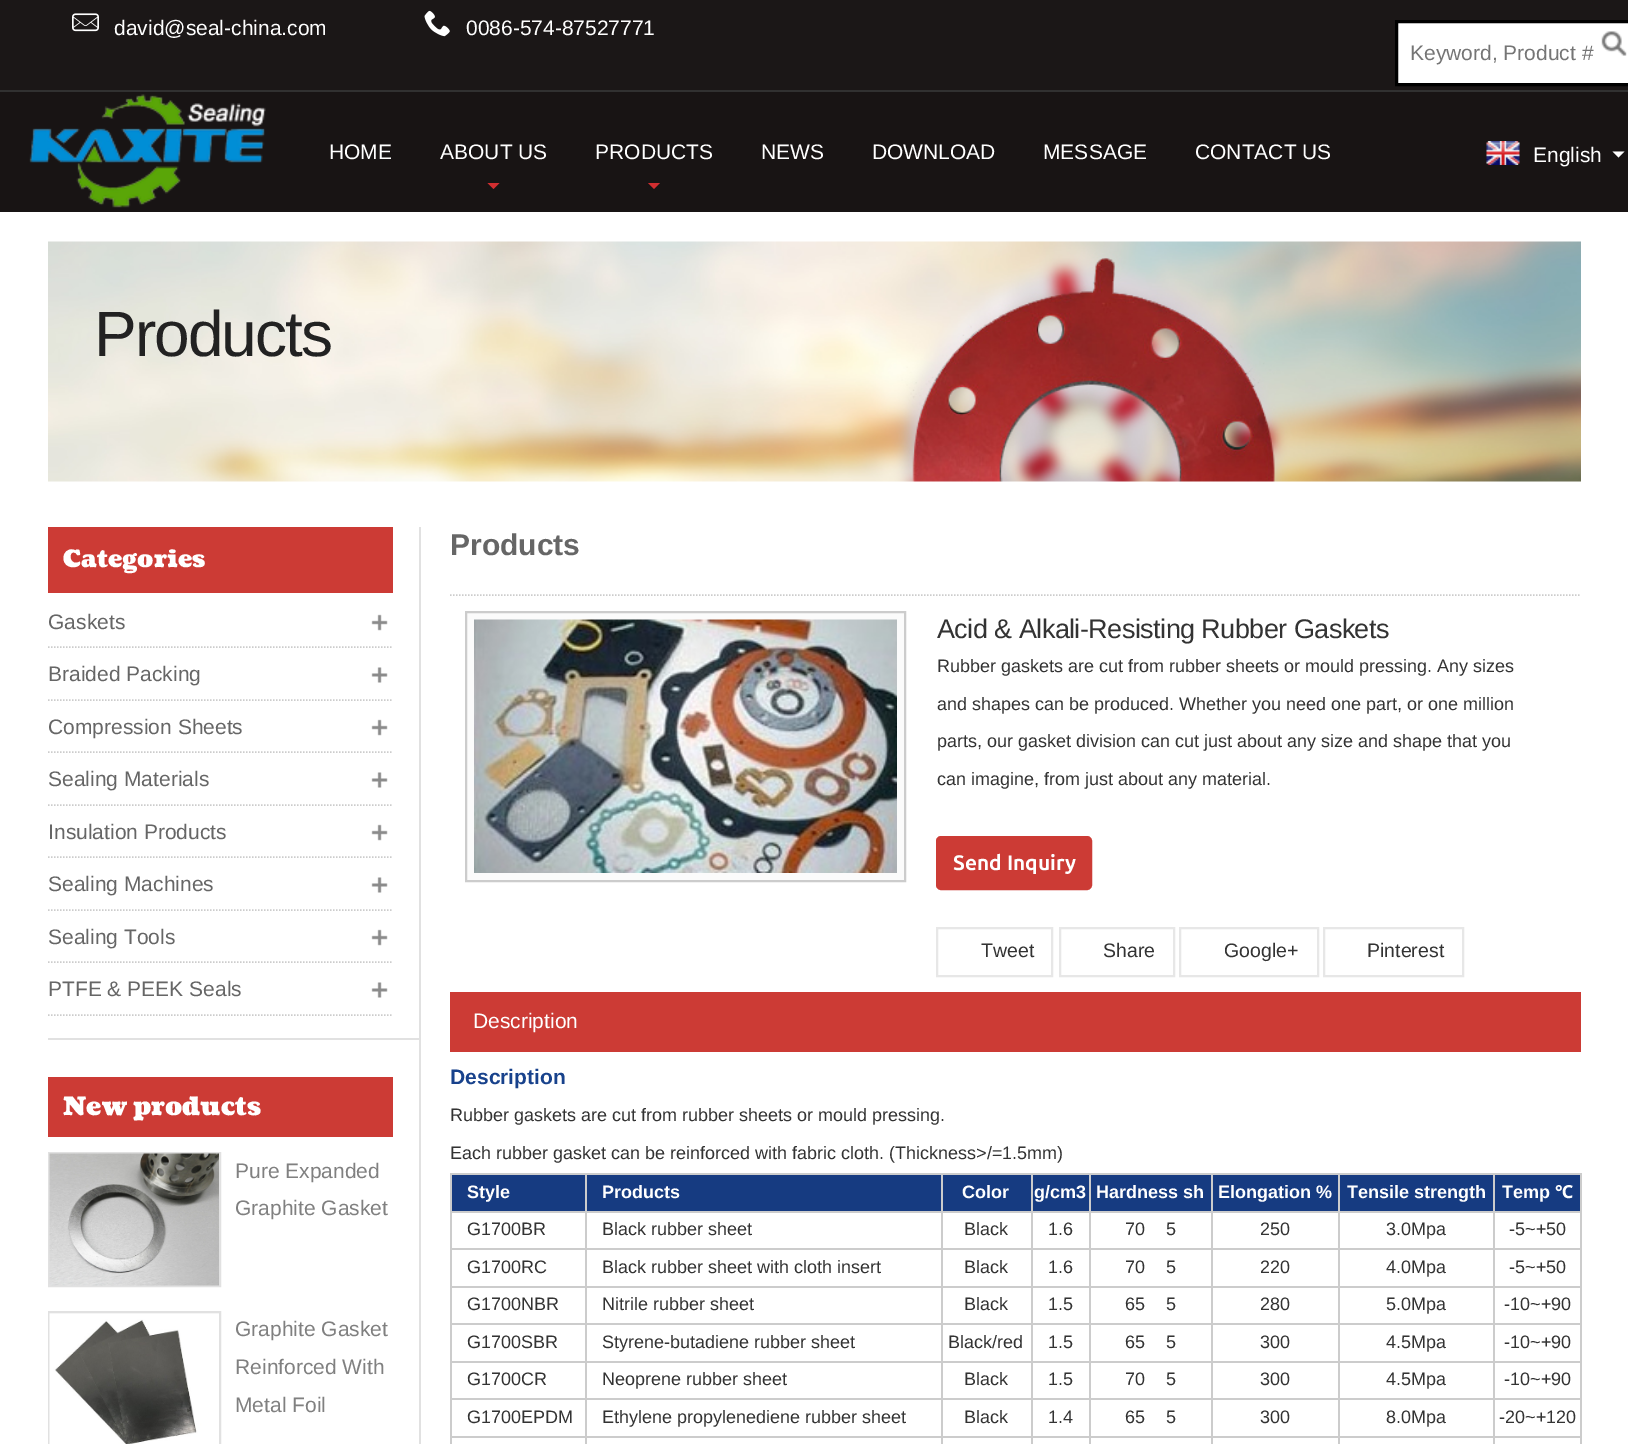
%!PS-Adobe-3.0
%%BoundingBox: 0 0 1628 1444
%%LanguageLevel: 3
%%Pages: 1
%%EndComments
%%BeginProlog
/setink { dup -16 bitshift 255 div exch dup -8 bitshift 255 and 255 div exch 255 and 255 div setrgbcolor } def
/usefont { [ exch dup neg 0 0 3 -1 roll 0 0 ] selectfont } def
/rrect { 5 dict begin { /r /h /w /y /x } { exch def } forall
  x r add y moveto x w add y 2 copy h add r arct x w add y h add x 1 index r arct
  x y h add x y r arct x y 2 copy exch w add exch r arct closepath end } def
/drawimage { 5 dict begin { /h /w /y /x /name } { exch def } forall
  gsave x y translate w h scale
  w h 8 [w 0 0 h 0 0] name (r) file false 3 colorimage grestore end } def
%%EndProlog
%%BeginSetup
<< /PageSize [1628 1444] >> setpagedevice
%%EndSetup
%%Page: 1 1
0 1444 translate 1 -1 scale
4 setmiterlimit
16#FFFFFF setink
0 0 1628 1444 rectfill
[
    [0 92 1628 120 16#181414]
    [0 0 1628 90 16#1B1717]
    [0 90 1628 2 16#313131]
] { aload pop setink rectfill } forall
(img1.raw) 72 13 27 19 drawimage
/LiberationSans-Regular 21 usefont
16#FFFFFF setink
114 35 moveto (david@seal-china.com) show
(img2.raw) 424 10 26 27 drawimage
466 35 moveto (0086-574-87527771) show
1396.5 21.5 moveto 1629.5 21.5 lineto 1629.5 84.5 lineto 1396.5 84.5 lineto closepath gsave fill grestore
16#000000 setink
3 setlinewidth
stroke
16#757575 setink
1410 60 moveto (Keyword, Product #) show
(img3.raw) 1601 31 26 25 drawimage
(img4.raw) 29 94 237 114 drawimage
16#FFFFFF setink
329 159 moveto (HOME) show
440 159 moveto (ABOUT US) show
16#D22E30 setink
487.5 183 moveto 499.5 183 lineto 493.5 189 lineto closepath fill
16#FFFFFF setink
595 159 moveto (PRODUCTS) show
16#D22E30 setink
648 183 moveto 660 183 lineto 654 189 lineto closepath fill
16#FFFFFF setink
[
    [(NEWS) 761 159]
    [(DOWNLOAD) 872 159]
    [(MESSAGE) 1043 159]
    [(CONTACT US) 1195 159]
] { aload pop moveto show } forall
(img5.raw) 1486 141 34 24 drawimage
1533 162 moveto (English) show
1612.5 151.5 moveto 1624.5 151.5 lineto 1618.5 157.5 lineto closepath fill
(img6.raw) 48 241 1533 241 drawimage
/LiberationSans-Regular 64 usefont
16#222222 setink
94 356 moveto -2 0 (Products) ashow
[
    [419 527 2 917 16#E1E1E1]
    [48 1038 371 2 16#E1E1E1]
    [48 527 345 66 16#CC3B35]
] { aload pop setink rectfill } forall
/Coustard-Black 24 usefont
16#FFFFFF setink
63 567 moveto (Categories) show
16#CCCCCC setink
1.5 setlinewidth
[1.5 1.5] 0 setdash
48 647 moveto 393 647 lineto stroke
/LiberationSans-Regular 21 usefont
16#666666 setink
48 629 moveto (Gaskets) show
(img7.raw) 371 614 17 17 drawimage
16#CCCCCC setink
48 700 moveto 393 700 lineto stroke
16#666666 setink
48 681 moveto (Braided Packing) show
(img8.raw) 371 667 17 16 drawimage
16#CCCCCC setink
48 752 moveto 393 752 lineto stroke
16#666666 setink
48 734 moveto (Compression Sheets) show
(img7.raw) 371 719 17 17 drawimage
16#CCCCCC setink
48 805 moveto 393 805 lineto stroke
16#666666 setink
48 786 moveto (Sealing Materials) show
(img8.raw) 371 772 17 16 drawimage
16#CCCCCC setink
48 857 moveto 393 857 lineto stroke
16#666666 setink
48 839 moveto (Insulation Products) show
(img7.raw) 371 824 17 17 drawimage
16#CCCCCC setink
48 910 moveto 393 910 lineto stroke
16#666666 setink
48 891 moveto (Sealing Machines) show
(img8.raw) 371 877 17 16 drawimage
16#CCCCCC setink
48 962 moveto 393 962 lineto stroke
16#666666 setink
48 944 moveto (Sealing Tools) show
(img7.raw) 371 929 17 17 drawimage
16#CCCCCC setink
48 1015 moveto 393 1015 lineto stroke
16#666666 setink
48 996 moveto (PTFE & PEEK Seals) show
(img8.raw) 371 982 17 16 drawimage
16#CC3B35 setink
48 1077 345 60 rectfill
/Coustard-Black 25.5 usefont
16#FFFFFF setink
63 1115 moveto (New products) show
16#E1E1E1 setink
2 setlinewidth
[] 0 setdash
49 1153 171 133 rectstroke
(img9.raw) 49 1153 170 133 drawimage
/LiberationSans-Regular 21 usefont
16#808080 setink
235 1178 moveto (Pure Expanded) show
235 1215 moveto (Graphite Gasket) show
16#E1E1E1 setink
49 1312 171 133 rectstroke
(img10.raw) 49 1313 170 131 drawimage
16#808080 setink
[
    [(Graphite Gasket) 235 1336]
    [(Reinforced With) 235 1374]
    [(Metal Foil) 235 1412]
] { aload pop moveto show } forall
16#CCCCCC setink
1.5 setlinewidth
[1.5 1.5] 0 setdash
450 595 moveto 1581 595 lineto stroke
/LiberationSans-Bold 30 usefont
16#666666 setink
450 555 moveto (Products) show
16#FBFBFB setink
466 612 moveto 905 612 lineto 905 881 lineto 466 881 lineto closepath gsave fill grestore
16#CCCCCC setink
2 setlinewidth
[] 0 setdash
stroke
(img11.raw) 474 619 423 254 drawimage
/LiberationSans-Regular 27 usefont
16#333333 setink
937 638 moveto -0.55 0 (Acid & Alkali-Resisting Rubber Gaskets) ashow
/LiberationSans-Regular 18 usefont
[
    [(Rubber gaskets are cut from rubber sheets or mould pressing. Any sizes) 937 672]
    [(and shapes can be produced. Whether you need one part, or one million) 937 710]
    [(parts, our gasket division can cut just about any size and shape that you) 937 747]
    [(can imagine, from just about any material.) 937 785]
] { aload pop moveto show } forall
16#CC3B35 setink
937 837 154 52 4 rrect gsave fill grestore
stroke
/Ubuntu-Bold 21 usefont
16#FFFFFF setink
953 870 moveto (Send Inquiry) show
16#E7E7E7 setink
937 928 115 48 rectstroke
/LiberationSans-Regular 19.5 usefont
16#333333 setink
981 957 moveto (Tweet) show
16#E7E7E7 setink
1060 928 114 48 rectstroke
16#333333 setink
1103 957 moveto (Share) show
16#E7E7E7 setink
1180 928 138 48 rectstroke
16#333333 setink
1224 957 moveto (Google+) show
16#E7E7E7 setink
1324 928 139 48 rectstroke
16#333333 setink
1367 957 moveto (Pinterest) show
16#CC3B35 setink
450 992 1131 60 rectfill
/LiberationSans-Regular 21 usefont
16#FFFFFF setink
473 1028 moveto (Description) show
/LiberationSans-Bold 21 usefont
16#18428C setink
450 1084 moveto (Description) show
/LiberationSans-Regular 18 usefont
16#333333 setink
450 1121 moveto (Rubber gaskets are cut from rubber sheets or mould pressing.) show
450 1159 moveto (Each rubber gasket can be reinforced with fabric cloth. \(Thickness>/=1.5mm\)) show
[
    [450 1173 1131 2 16#CCCCCC]
    [1580 1173 2 271 16#CCCCCC]
    [450 1173 2 271 16#CCCCCC]
    [452 1175 1128 36 16#163B81]
] { aload pop setink rectfill } forall
/LiberationSans-Bold 18 usefont
16#FFFFFF setink
467 1198 moveto (Style) show
[
    [1493 1211 88 2 16#CCCCCC]
    [1493 1248 88 2 16#CCCCCC]
    [1493 1286 88 2 16#CCCCCC]
    [1493 1323 88 2 16#CCCCCC]
    [1493 1361 88 2 16#CCCCCC]
    [1493 1398 88 2 16#CCCCCC]
    [1493 1436 88 2 16#CCCCCC]
    [1493 1436 2 8 16#CCCCCC]
    [1338 1436 156 2 16#CCCCCC]
    [1493 1398 2 39 16#CCCCCC]
    [1338 1398 156 2 16#CCCCCC]
    [1493 1361 2 39 16#CCCCCC]
    [1338 1361 156 2 16#CCCCCC]
    [1493 1323 2 39 16#CCCCCC]
    [1338 1323 156 2 16#CCCCCC]
    [1493 1286 2 39 16#CCCCCC]
    [1338 1286 156 2 16#CCCCCC]
    [1493 1248 2 39 16#CCCCCC]
    [1338 1248 156 2 16#CCCCCC]
    [1493 1211 2 39 16#CCCCCC]
    [1338 1211 156 2 16#CCCCCC]
    [1338 1436 2 8 16#CCCCCC]
    [1211 1436 129 2 16#CCCCCC]
    [1338 1398 2 39 16#CCCCCC]
    [1211 1398 129 2 16#CCCCCC]
    [1338 1361 2 39 16#CCCCCC]
    [1211 1361 129 2 16#CCCCCC]
    [1338 1323 2 39 16#CCCCCC]
    [1211 1323 129 2 16#CCCCCC]
    [1338 1286 2 39 16#CCCCCC]
    [1211 1286 129 2 16#CCCCCC]
    [1338 1248 2 39 16#CCCCCC]
    [1211 1248 129 2 16#CCCCCC]
    [1338 1211 2 39 16#CCCCCC]
    [1211 1211 129 2 16#CCCCCC]
    [1211 1436 2 8 16#CCCCCC]
    [1089 1436 123 2 16#CCCCCC]
    [1211 1398 2 39 16#CCCCCC]
    [1089 1398 123 2 16#CCCCCC]
    [1211 1361 2 39 16#CCCCCC]
    [1089 1361 123 2 16#CCCCCC]
    [1211 1323 2 39 16#CCCCCC]
    [1089 1323 123 2 16#CCCCCC]
    [1211 1286 2 39 16#CCCCCC]
    [1089 1286 123 2 16#CCCCCC]
    [1211 1248 2 39 16#CCCCCC]
    [1089 1248 123 2 16#CCCCCC]
    [1211 1211 2 39 16#CCCCCC]
    [1089 1211 123 2 16#CCCCCC]
    [1089 1436 2 8 16#CCCCCC]
    [1031 1436 60 2 16#CCCCCC]
    [1089 1398 2 39 16#CCCCCC]
    [1031 1398 60 2 16#CCCCCC]
    [1089 1361 2 39 16#CCCCCC]
    [1031 1361 60 2 16#CCCCCC]
    [1089 1323 2 39 16#CCCCCC]
    [1031 1323 60 2 16#CCCCCC]
    [1089 1286 2 39 16#CCCCCC]
    [1031 1286 60 2 16#CCCCCC]
    [1089 1248 2 39 16#CCCCCC]
    [1031 1248 60 2 16#CCCCCC]
    [1089 1211 2 39 16#CCCCCC]
    [1031 1211 60 2 16#CCCCCC]
    [1031 1436 2 8 16#CCCCCC]
    [941 1436 91 2 16#CCCCCC]
    [1031 1398 2 39 16#CCCCCC]
    [941 1398 91 2 16#CCCCCC]
    [1031 1361 2 39 16#CCCCCC]
    [941 1361 91 2 16#CCCCCC]
    [1031 1323 2 39 16#CCCCCC]
    [941 1323 91 2 16#CCCCCC]
    [1031 1286 2 39 16#CCCCCC]
    [941 1286 91 2 16#CCCCCC]
    [1031 1248 2 39 16#CCCCCC]
    [941 1248 91 2 16#CCCCCC]
    [1031 1211 2 39 16#CCCCCC]
    [941 1211 91 2 16#CCCCCC]
    [941 1436 2 8 16#CCCCCC]
    [585 1436 357 2 16#CCCCCC]
    [941 1398 2 39 16#CCCCCC]
    [585 1398 357 2 16#CCCCCC]
    [941 1361 2 39 16#CCCCCC]
    [585 1361 357 2 16#CCCCCC]
    [941 1323 2 39 16#CCCCCC]
    [585 1323 357 2 16#CCCCCC]
    [941 1286 2 39 16#CCCCCC]
    [585 1286 357 2 16#CCCCCC]
    [941 1248 2 39 16#CCCCCC]
    [585 1248 357 2 16#CCCCCC]
    [941 1211 2 39 16#CCCCCC]
    [585 1211 357 2 16#CCCCCC]
    [585 1436 2 8 16#CCCCCC]
    [450 1436 137 2 16#CCCCCC]
    [585 1398 2 39 16#CCCCCC]
    [450 1398 137 2 16#CCCCCC]
    [585 1361 2 39 16#CCCCCC]
    [450 1361 137 2 16#CCCCCC]
    [585 1323 2 39 16#CCCCCC]
    [450 1323 137 2 16#CCCCCC]
    [585 1286 2 39 16#CCCCCC]
    [450 1286 137 2 16#CCCCCC]
    [585 1248 2 39 16#CCCCCC]
    [450 1248 137 2 16#CCCCCC]
    [585 1211 2 39 16#CCCCCC]
    [450 1211 137 2 16#CCCCCC]
    [585 1173 2 39 16#CCCCCC]
] { aload pop setink rectfill } forall
16#FFFFFF setink
602 1198 moveto (Products) show
16#CCCCCC setink
941 1173 2 39 rectfill
16#FFFFFF setink
962 1198 moveto (Color) show
16#CCCCCC setink
1031 1173 2 39 rectfill
16#FFFFFF setink
1034 1198 moveto (g/cm3) show
16#CCCCCC setink
1089 1173 2 39 rectfill
16#FFFFFF setink
1096 1198 moveto (Hardness sh) show
16#CCCCCC setink
1211 1173 2 39 rectfill
16#FFFFFF setink
1218 1198 moveto (Elongation %) show
16#CCCCCC setink
1338 1173 2 39 rectfill
16#FFFFFF setink
1347 1198 moveto (Tensile strength) show
16#CCCCCC setink
1493 1173 2 39 rectfill
16#FFFFFF setink
1502 1198 moveto (Temp) show
/NotoSans-Bold 18 usefont
1555 1198 moveto (℃) show
/LiberationSans-Regular 18 usefont
16#333333 setink
[
    [(G1700BR) 467 1235]
    [(Black rubber sheet) 602 1235]
    [(Black) 964 1235]
    [(1.6) 1048 1235]
    [(70) 1125 1235]
    [(5) 1166 1235]
    [(250) 1260 1235]
    [(3.0Mpa) 1386 1235]
    [(-5~+50) 1509 1235]
    [(G1700RC) 467 1273]
    [(Black rubber sheet with cloth insert) 602 1273]
    [(Black) 964 1273]
    [(1.6) 1048 1273]
    [(70) 1125 1273]
    [(5) 1166 1273]
    [(220) 1260 1273]
    [(4.0Mpa) 1386 1273]
    [(-5~+50) 1509 1273]
    [(G1700NBR) 467 1310]
    [(Nitrile rubber sheet) 602 1310]
    [(Black) 964 1310]
    [(1.5) 1048 1310]
    [(65) 1125 1310]
    [(5) 1166 1310]
    [(280) 1260 1310]
    [(5.0Mpa) 1386 1310]
    [(-10~+90) 1504 1310]
    [(G1700SBR) 467 1348]
    [(Styrene-butadiene rubber sheet) 602 1348]
    [(Black/red) 948 1348]
    [(1.5) 1048 1348]
    [(65) 1125 1348]
    [(5) 1166 1348]
    [(300) 1260 1348]
    [(4.5Mpa) 1386 1348]
    [(-10~+90) 1504 1348]
    [(G1700CR) 467 1385]
    [(Neoprene rubber sheet) 602 1385]
    [(Black) 964 1385]
    [(1.5) 1048 1385]
    [(70) 1125 1385]
    [(5) 1166 1385]
    [(300) 1260 1385]
    [(4.5Mpa) 1386 1385]
    [(-10~+90) 1504 1385]
    [(G1700EPDM) 467 1423]
    [(Ethylene propylenediene rubber sheet) 602 1423]
    [(Black) 964 1423]
    [(1.4) 1048 1423]
    [(65) 1125 1423]
    [(5) 1166 1423]
    [(300) 1260 1423]
    [(8.0Mpa) 1386 1423]
    [(-20~+120) 1499 1423]
] { aload pop moveto show } forall
showpage
%%EOF
